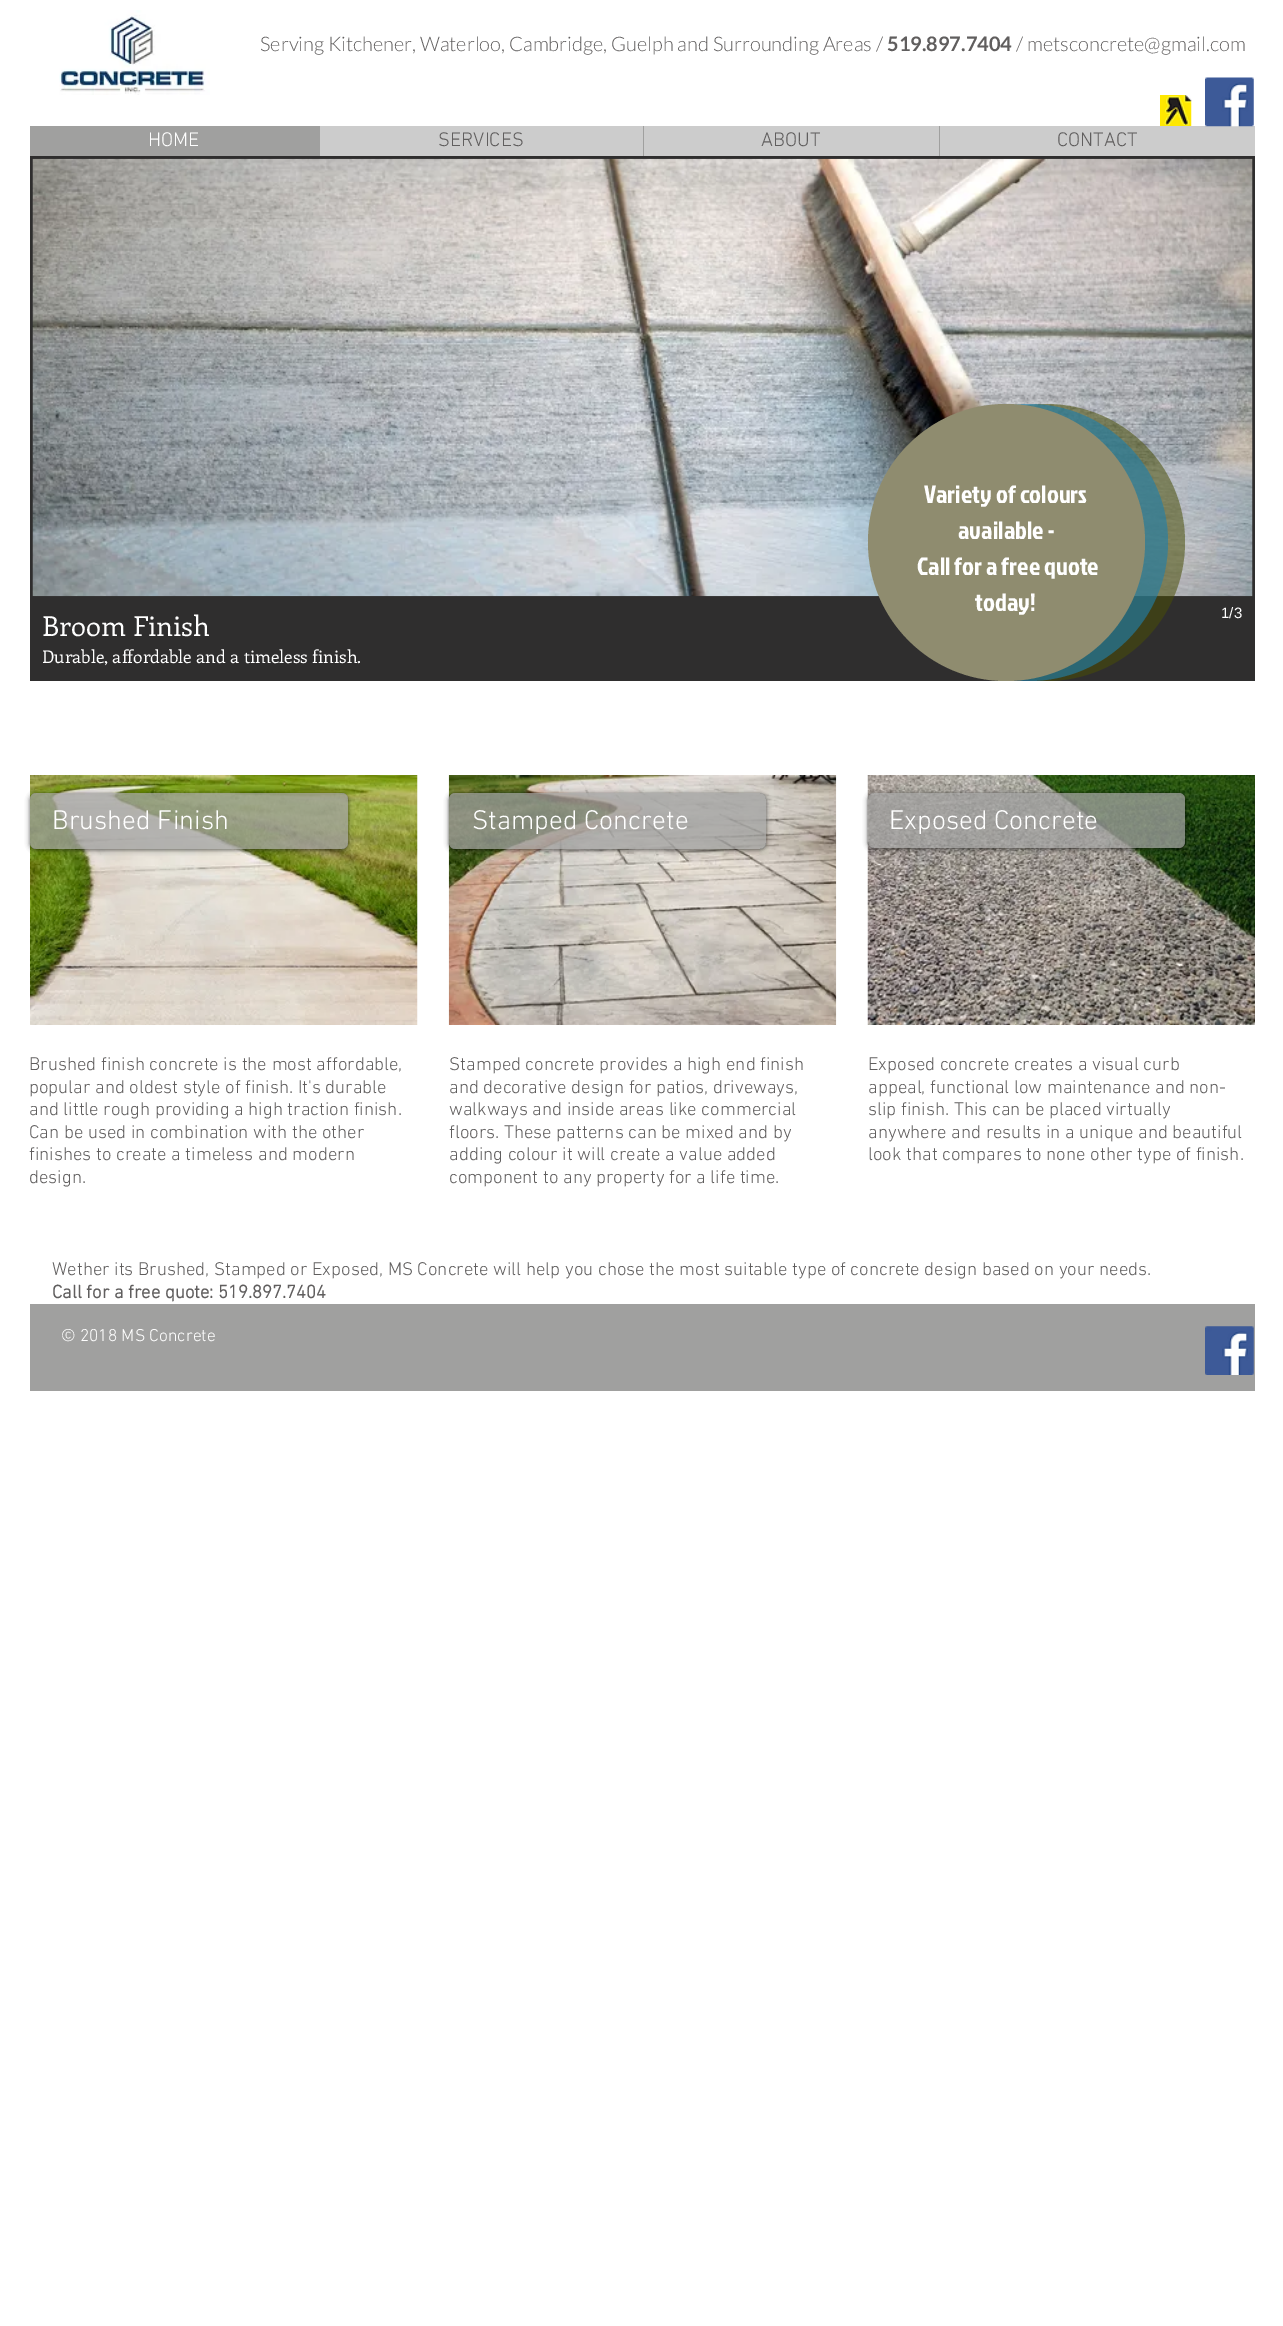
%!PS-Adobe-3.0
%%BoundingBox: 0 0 1283 2326
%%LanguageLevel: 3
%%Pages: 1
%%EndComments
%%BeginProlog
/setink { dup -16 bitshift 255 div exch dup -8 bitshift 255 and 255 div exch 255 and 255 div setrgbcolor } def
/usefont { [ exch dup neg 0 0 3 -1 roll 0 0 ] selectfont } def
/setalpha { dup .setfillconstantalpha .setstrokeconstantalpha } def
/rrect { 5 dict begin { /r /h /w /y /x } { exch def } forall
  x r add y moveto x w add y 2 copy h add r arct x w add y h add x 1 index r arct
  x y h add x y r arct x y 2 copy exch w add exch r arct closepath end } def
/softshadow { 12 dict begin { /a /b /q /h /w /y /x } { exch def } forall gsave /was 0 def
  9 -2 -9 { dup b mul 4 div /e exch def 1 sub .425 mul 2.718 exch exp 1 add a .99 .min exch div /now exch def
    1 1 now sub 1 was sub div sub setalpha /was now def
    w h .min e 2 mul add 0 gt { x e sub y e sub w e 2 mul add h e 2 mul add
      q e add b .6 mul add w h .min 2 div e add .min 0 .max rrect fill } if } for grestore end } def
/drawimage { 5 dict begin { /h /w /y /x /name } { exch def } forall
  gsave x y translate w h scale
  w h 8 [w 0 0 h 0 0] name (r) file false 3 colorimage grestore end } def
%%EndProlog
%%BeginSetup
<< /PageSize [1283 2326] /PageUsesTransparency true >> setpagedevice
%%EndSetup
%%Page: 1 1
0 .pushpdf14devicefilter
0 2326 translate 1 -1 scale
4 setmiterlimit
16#FFFFFF setink
0 0 1283 2326 rectfill
(img1.raw) 59 10 151 85 drawimage
/Lato-Light 20 usefont
16#605E5E setink
260 51 moveto (Serving Kitchener, Waterloo, Cambridge, Guelph and Surrounding Areas /) show
/Lato-Bold 20 usefont
887 51 moveto (519.897.7404) show
/Lato-Light 20 usefont
1016 51 moveto (/ metsconcrete@gmail.com) show
(img2.raw) 1160 95 32 31 drawimage
16#CCCCCC setink
320 126 935 30 rectfill
(img3.raw) 1205 77 49 50 drawimage
16#A0A09F setink
30 126 290 30 rectfill
/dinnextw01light-Light 20 usefont
16#FFFFFF setink
148 146 moveto (HOME) show
16#605E5E setink
438 146 moveto (SERVICES) show
16#A0A09F setink
643 126 1 30 rectfill
16#605E5E setink
761 146 moveto (ABOUT) show
16#A0A09F setink
939 126 1 30 rectfill
16#605E5E setink
1057 146 moveto (CONTACT) show
16#2F2E2E setink
30 156 1225 525 rectfill
(img4.raw) 32 158 1221 439 drawimage
0.54 setalpha
16#484D06 setink
1185 542 moveto 1185 619 1123 681 1046 681 curveto 970 681 908 619 908 542 curveto 908 466 970 404 1046 404 curveto 1123 404 1185 466 1185 542 curveto closepath fill
0.63 setalpha
16#207EA9 setink
1168 542 moveto 1168 619 1105 681 1029 681 curveto 952 681 890 619 890 542 curveto 890 466 952 404 1029 404 curveto 1105 404 1168 466 1168 542 curveto closepath fill
1 setalpha
16#8F8C6F setink
1145 542 moveto 1145 619 1083 681 1006 681 curveto 930 681 868 619 868 542 curveto 868 466 930 404 1006 404 curveto 1083 404 1145 466 1145 542 curveto closepath fill
/JockeyOne-Regular 25 usefont
16#FFFFFF setink
[
    [(Variety of colours) 924 503]
    [(available -) 958 539]
    [(Call for a free quote) 917 575]
    [(today!) 975 611]
] { aload pop moveto show } forall
/Enriqueta-Regular 27.5 usefont
42 636 moveto (Broom Finish) show
gsave
43 645 1100 24 rectclip
/Enriqueta-Regular 17.5 usefont
42 663 moveto (Durable, affordable and a timeless finish.) show
grestore
/LiberationSans-Regular 15 usefont
1221 618 moveto (1/3) show
(img5.raw) 30 775 388 250 drawimage
(img6.raw) 448 775 389 250 drawimage
(img7.raw) 867 775 388 250 drawimage
gsave
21 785 moveto 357 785 lineto 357 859 lineto 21 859 lineto closepath 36 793 moveto 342 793 lineto 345.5 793 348 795.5 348 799 curveto 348 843 lineto 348 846.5 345.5 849 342 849 curveto 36 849 lineto 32.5 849 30 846.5 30 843 curveto 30 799 lineto 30 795.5 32.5 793 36 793 curveto closepath eoclip newpath
16#000000 setink
30 794 318 56 6 2.5 0.6 softshadow
grestore
0.75 setalpha
16#A0A09F setink
30 793 318 56 6 rrect fill
/dinnextw01light-Light 27.5 usefont
1 setalpha
16#FFFFFF setink
52 829 moveto (Brushed Finish) show
gsave
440 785 moveto 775 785 lineto 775 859 lineto 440 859 lineto closepath 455 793 moveto 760 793 lineto 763.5 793 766 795.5 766 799 curveto 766 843 lineto 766 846.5 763.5 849 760 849 curveto 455 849 lineto 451.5 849 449 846.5 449 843 curveto 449 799 lineto 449 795.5 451.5 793 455 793 curveto closepath eoclip newpath
16#000000 setink
449 794 317 56 6 2.5 0.6 softshadow
grestore
0.75 setalpha
16#A0A09F setink
449 793 317 56 6 rrect fill
1 setalpha
16#FFFFFF setink
472 829 moveto (Stamped Concrete) show
gsave
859 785 moveto 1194 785 lineto 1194 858 lineto 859 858 lineto closepath 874 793 moveto 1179 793 lineto 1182.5 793 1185 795.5 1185 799 curveto 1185 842 lineto 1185 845.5 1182.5 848 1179 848 curveto 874 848 lineto 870.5 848 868 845.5 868 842 curveto 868 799 lineto 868 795.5 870.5 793 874 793 curveto closepath eoclip newpath
16#000000 setink
868 794 317 55 6 2.5 0.6 softshadow
grestore
0.75 setalpha
16#A0A09F setink
868 793 317 55 6 rrect fill
1 setalpha
16#FFFFFF setink
889 829 moveto (Exposed Concrete) show
/dinnextw01light-Light 18.75 usefont
16#605E5E setink
[
    [(Brushed finish concrete is the most affordable,) 29 1070]
    [(popular and oldest style of finish. It's durable) 29 1093]
    [(and little rough providing a high traction finish.) 29 1115]
    [(Can be used in combination with the other) 29 1138]
    [(finishes to create a timeless and modern) 29 1160]
    [(design.) 29 1183]
    [(Stamped concrete provides a high end finish) 449 1070]
    [(and decorative design for patios, driveways,) 449 1093]
    [(walkways and inside areas like commercial) 449 1115]
    [(floors. These patterns can be mixed and by) 449 1138]
    [(adding colour it will create a value added) 449 1160]
    [(component to any property for a life time.) 449 1183]
    [(Exposed concrete creates a visual curb) 868 1070]
    [(appeal, functional low maintenance and non-) 868 1093]
    [(slip finish. This can be placed virtually) 868 1115]
    [(anywhere and results in a unique and beautiful) 868 1138]
    [(look that compares to none other type of finish.) 868 1160]
    [(Wether its Brushed, Stamped or Exposed, MS Concrete will help you chose the most suitable type of concrete design based on your needs.) 52 1275]
] { aload pop moveto show } forall
/dinnextw01light-Bold 18.75 usefont
52 1298 moveto (Call for a free quote: 519.897.7404) show
16#A0A09F setink
30 1304 1225 87 rectfill
/dinnextw01light-Light 17.5 usefont
16#FFFFFF setink
61 1341 moveto (© 2018 MS Concrete) show
(img8.raw) 1205 1326 49 49 drawimage
.poppdf14devicefilter showpage
%%EOF
